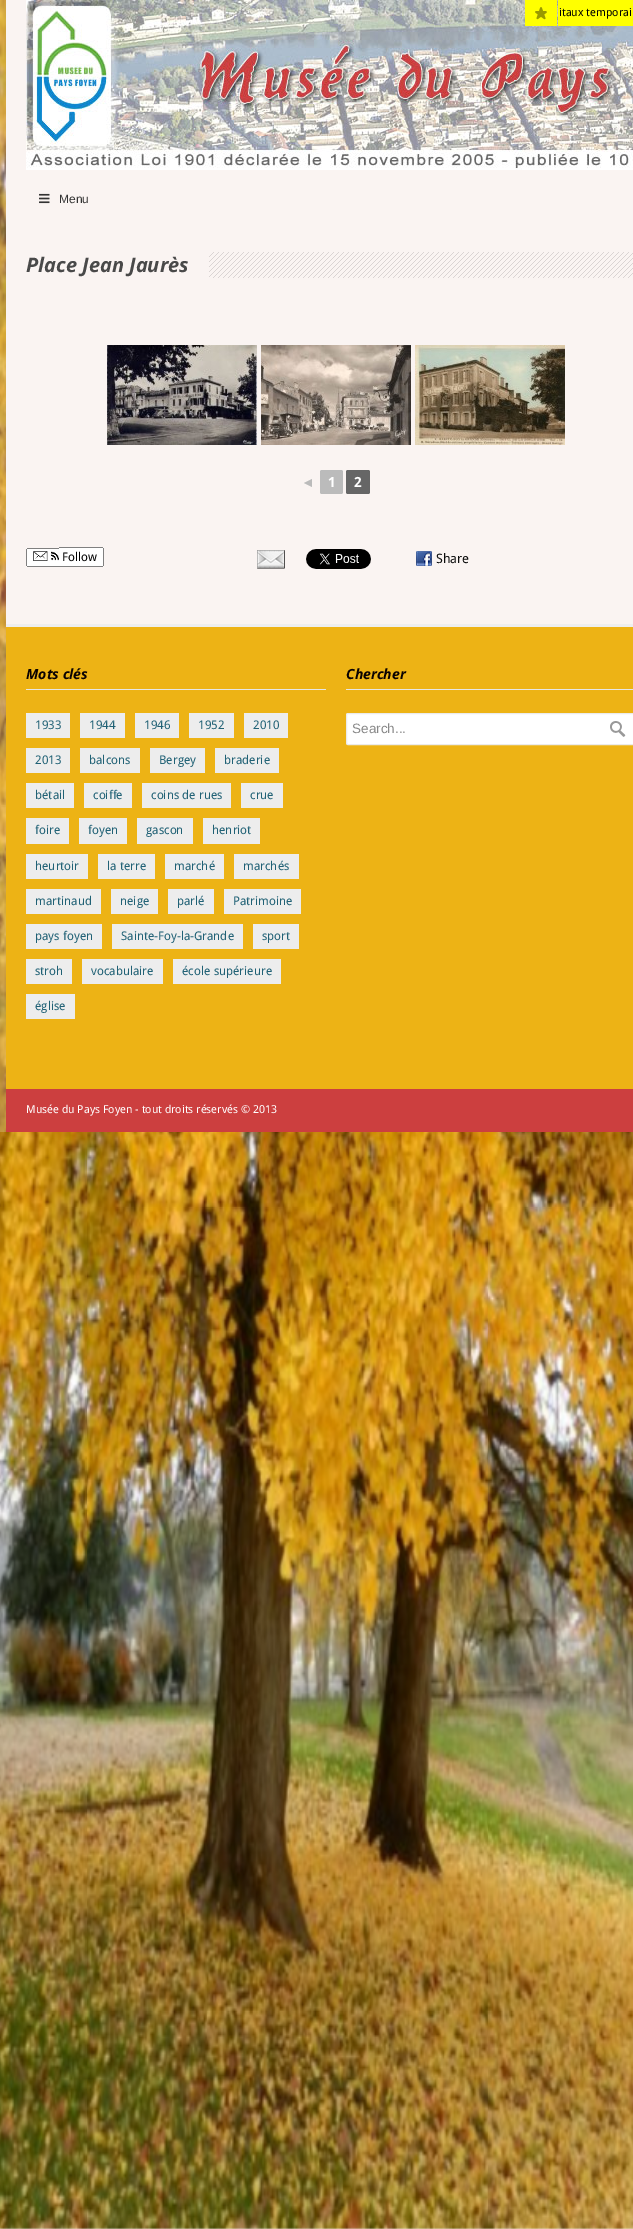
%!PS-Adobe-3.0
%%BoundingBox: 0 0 633 2229
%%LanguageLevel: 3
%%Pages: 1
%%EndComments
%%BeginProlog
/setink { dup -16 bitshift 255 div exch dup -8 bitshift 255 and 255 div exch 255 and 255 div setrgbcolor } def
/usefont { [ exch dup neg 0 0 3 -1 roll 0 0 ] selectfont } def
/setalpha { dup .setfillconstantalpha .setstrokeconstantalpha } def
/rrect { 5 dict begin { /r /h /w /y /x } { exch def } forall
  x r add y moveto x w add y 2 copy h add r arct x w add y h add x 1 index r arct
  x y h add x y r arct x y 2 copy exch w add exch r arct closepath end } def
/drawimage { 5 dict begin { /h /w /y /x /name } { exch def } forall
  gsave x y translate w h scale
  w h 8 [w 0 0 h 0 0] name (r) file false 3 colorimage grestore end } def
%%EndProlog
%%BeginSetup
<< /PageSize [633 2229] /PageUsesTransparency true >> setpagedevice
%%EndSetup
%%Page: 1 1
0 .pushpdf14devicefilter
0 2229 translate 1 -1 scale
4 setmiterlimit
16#F7F6F4 setink
0 0 633 2229 rectfill
(img1.raw) 0 0 633 2229 drawimage
0.21 setalpha
16#FFFFFF setink
0 0 6 1132 rectfill
1 setalpha
16#FAF4F2 setink
6 0 627 624 rectfill
(img2.raw) 26 0 607 170 drawimage
16#FFFF00 setink
525 0 32 26 rectfill
(img3.raw) 535 7 12 13 drawimage
558 0 75 26 rectfill
/DroidSans-Regular 11 usefont
16#000000 setink
559 16 moveto (itaux temporair) show
(img4.raw) 39 193 11 11 drawimage
/LiberationSans-Regular 12 usefont
16#333333 setink
59 203 moveto (Menu) show
/OpenSans-BoldItalic 20 usefont
16#494949 setink
26 272 moveto (Place Jean Jaurès) show
(img5.raw) 209 252 424 26 drawimage
(img6.raw) 107 345 150 100 drawimage
(img7.raw) 261 345 150 100 drawimage
(img8.raw) 415 345 150 100 drawimage
/LiberationSerif-Bold 14 usefont
16#BBBBBB setink
301 487 moveto (◄) show
320 470 23 24 2 rrect fill
/DroidSans-Bold 14 usefont
16#FFFFFF setink
328 487 moveto (1) show
16#666666 setink
346 470 24 24 2 rrect fill
16#FFFFFF setink
354 487 moveto (2) show
28 548 moveto 59 548 lineto 59 567 lineto 28 567 lineto 27 567 26 566 26 565 curveto 26 550 lineto 26 549 27 548 28 548 curveto closepath fill
(img9.raw) 33 551 26 10 drawimage
59 547 moveto 102 547 lineto 103 547 104 548 104 549 curveto 104 565 lineto 104 566 103 567 102 567 curveto 59 567 lineto closepath fill
/DroidSans-Regular 12 usefont
16#000000 setink
62 561 moveto (Follow) show
[
    [27 548 32 1 16#808080]
    [27 566 32 1 16#808080]
    [26 549 1 17 16#808080]
    [59 547 44 1 16#808080]
    [103 548 1 18 16#808080]
    [59 566 44 1 16#808080]
] { aload pop setink rectfill } forall
(img10.raw) 257 550 28 19 drawimage
(img11.raw) 306 549 65 20 drawimage
(img12.raw) 416 551 16 15 drawimage
/DroidSans-Regular 13 usefont
16#0C0D0D setink
436 563 moveto (Share) show
[
    [6 624 627 3 16#EEEEEE]
    [6 627 627 462 16#EDB315]
    [26 689 300 1 16#E6E6E6]
] { aload pop setink rectfill } forall
/OpenSans-BoldItalic 14 usefont
16#0A0202 setink
26 679 moveto (Mots clés) show
16#EDEDED setink
26 713 44 25 rectfill
/DroidSans-Regular 12 usefont
16#206175 setink
35 729 moveto (1933) show
16#EDEDED setink
80 713 45 25 rectfill
16#206175 setink
89 729 moveto (1944) show
16#EDEDED setink
135 713 44 25 rectfill
16#206175 setink
144 729 moveto (1946) show
16#EDEDED setink
189 713 45 25 rectfill
16#206175 setink
198 729 moveto (1952) show
16#EDEDED setink
244 713 44 25 rectfill
16#206175 setink
253 729 moveto (2010) show
16#EDEDED setink
26 748 44 25 rectfill
16#206175 setink
35 764 moveto (2013) show
16#EDEDED setink
80 748 60 25 rectfill
16#206175 setink
89 764 moveto (balcons) show
16#EDEDED setink
150 748 55 25 rectfill
16#206175 setink
159 764 moveto (Bergey) show
16#EDEDED setink
215 748 64 25 rectfill
16#206175 setink
224 764 moveto (braderie) show
16#EDEDED setink
26 783 48 25 rectfill
16#206175 setink
35 799 moveto (bétail) show
16#EDEDED setink
84 783 48 25 rectfill
16#206175 setink
93 799 moveto (coiffe) show
16#EDEDED setink
142 783 89 25 rectfill
16#206175 setink
151 799 moveto (coins de rues) show
16#EDEDED setink
241 783 42 25 rectfill
16#206175 setink
250 799 moveto (crue) show
16#EDEDED setink
26 818 43 26 rectfill
16#206175 setink
35 834 moveto (foire) show
16#EDEDED setink
79 818 48 26 rectfill
16#206175 setink
88 834 moveto (foyen) show
16#EDEDED setink
137 818 56 26 rectfill
16#206175 setink
146 834 moveto (gascon) show
16#EDEDED setink
203 818 57 26 rectfill
16#206175 setink
212 834 moveto (henriot) show
16#EDEDED setink
26 854 62 25 rectfill
16#206175 setink
35 870 moveto (heurtoir) show
16#EDEDED setink
98 854 57 25 rectfill
16#206175 setink
107 870 moveto (la terre) show
16#EDEDED setink
165 854 59 25 rectfill
16#206175 setink
174 870 moveto (marché) show
16#EDEDED setink
234 854 65 25 rectfill
16#206175 setink
243 870 moveto (marchés) show
16#EDEDED setink
26 889 75 25 rectfill
16#206175 setink
35 905 moveto (martinaud) show
16#EDEDED setink
111 889 47 25 rectfill
16#206175 setink
120 905 moveto (neige) show
16#EDEDED setink
168 889 46 25 rectfill
16#206175 setink
177 905 moveto (parlé) show
16#EDEDED setink
224 889 77 25 rectfill
16#206175 setink
233 905 moveto (Patrimoine) show
16#EDEDED setink
26 924 76 25 rectfill
16#206175 setink
35 940 moveto (pays foyen) show
16#EDEDED setink
112 924 131 25 rectfill
16#206175 setink
121 940 moveto (Sainte-Foy-la-Grande) show
16#EDEDED setink
253 924 46 25 rectfill
16#206175 setink
262 940 moveto (sport) show
16#EDEDED setink
26 959 46 25 rectfill
16#206175 setink
35 975 moveto (stroh) show
16#EDEDED setink
82 959 81 25 rectfill
16#206175 setink
91 975 moveto (vocabulaire) show
16#EDEDED setink
173 959 108 25 rectfill
16#206175 setink
182 975 moveto (école supérieure) show
16#EDEDED setink
26 994 49 25 rectfill
16#206175 setink
35 1010 moveto (église) show
16#E6E6E6 setink
346 689 287 1 rectfill
/OpenSans-BoldItalic 14 usefont
16#0A0202 setink
346 679 moveto (Chercher) show
16#FFFFFF setink
346.5 713.5 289 31 1.5 rrect gsave fill grestore
16#EBEBEB setink
stroke
/LiberationSans-Regular 13.5 usefont
16#888888 setink
352 733 moveto (Search...) show
(img13.raw) 610 721 16 16 drawimage
16#CC3F3F setink
6 1089 627 43 rectfill
/DroidSans-Regular 11 usefont
16#FFFFFF setink
26 1113 moveto (Musée du Pays Foyen - tout droits réservés © 2013) show
.poppdf14devicefilter showpage
%%EOF
